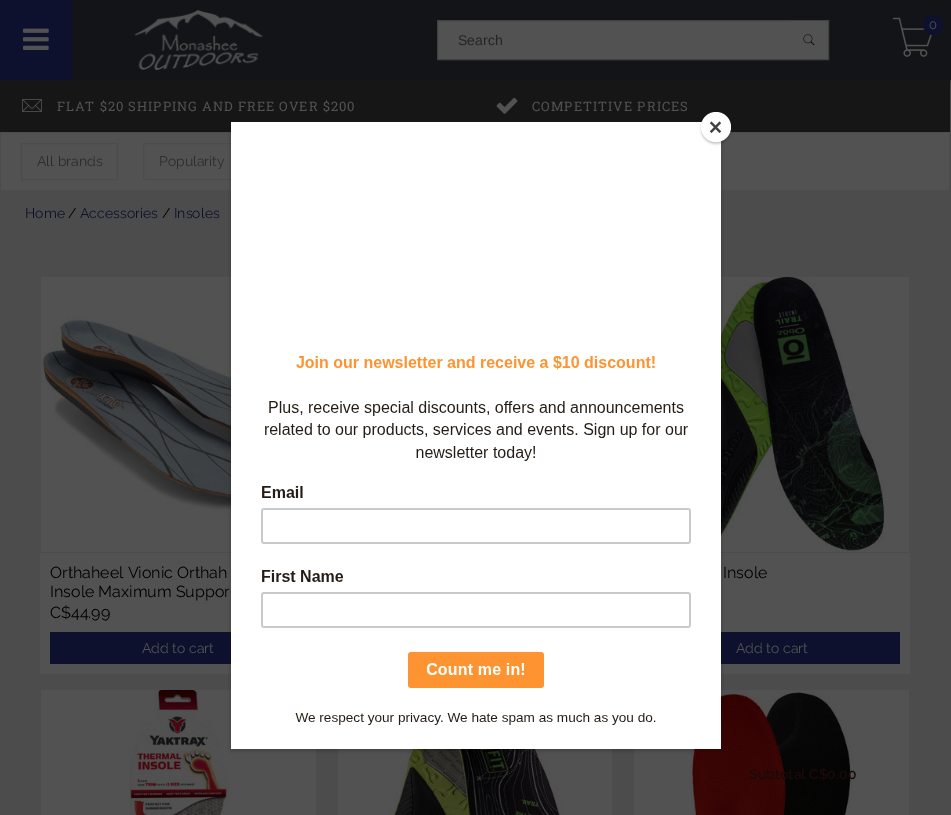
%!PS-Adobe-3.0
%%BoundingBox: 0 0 951 815
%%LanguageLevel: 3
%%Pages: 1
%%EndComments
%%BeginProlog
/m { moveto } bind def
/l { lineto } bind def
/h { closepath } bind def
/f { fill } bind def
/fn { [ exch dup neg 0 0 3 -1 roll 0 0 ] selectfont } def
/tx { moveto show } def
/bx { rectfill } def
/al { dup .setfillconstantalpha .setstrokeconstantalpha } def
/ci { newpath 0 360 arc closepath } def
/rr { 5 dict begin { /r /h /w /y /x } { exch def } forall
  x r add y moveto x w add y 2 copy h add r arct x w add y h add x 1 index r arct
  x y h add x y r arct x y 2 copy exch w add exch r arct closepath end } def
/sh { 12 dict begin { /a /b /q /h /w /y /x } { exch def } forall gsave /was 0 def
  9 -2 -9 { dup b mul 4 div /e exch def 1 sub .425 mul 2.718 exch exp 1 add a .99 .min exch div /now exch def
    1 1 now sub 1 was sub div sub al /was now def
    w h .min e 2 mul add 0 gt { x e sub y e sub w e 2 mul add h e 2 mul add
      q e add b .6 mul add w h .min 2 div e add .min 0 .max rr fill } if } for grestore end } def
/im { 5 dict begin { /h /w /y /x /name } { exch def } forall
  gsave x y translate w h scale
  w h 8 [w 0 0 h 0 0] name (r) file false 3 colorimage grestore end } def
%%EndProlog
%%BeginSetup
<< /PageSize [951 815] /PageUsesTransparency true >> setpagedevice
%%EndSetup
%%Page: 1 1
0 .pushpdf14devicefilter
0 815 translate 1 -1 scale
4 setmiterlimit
0.298 setgray
0 0 951 815 bx
0.086 setgray
0 80 950 52 bx
0.063 setgray
2 1 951 82 0 0.5 0.25 sh
0.075 0.078 0.09 setrgbcolor
72 0 879 80 bx
0.055 0.067 0.18 setrgbcolor
0 0 72 80 bx
(image0.raw) 23 28 26 22 im
(image1.raw) 134 10 129 60 im
(image2.raw) 892 17 41 40 im
933 25 10 ci f
/Raleway-Regular 13 fn
0.322 setgray
(0) 929 29 tx
438 21 352 38 bx
0.255 setgray
437.5 20.5 391 39 rectstroke
/LiberationSans-Regular 14 fn
0.145 setgray
(Search) 458 45 tx
0.322 setgray
790 21 38 38 bx
(image3.raw) 803 34 12 12 im
(image4.raw) 22 99 20 13 im
/RobotoSlab-Regular 13 fn
57 111 m 1 0 (FLAT $20 SHIPPING AND FREE OVER $200) ashow
(image5.raw) 496 97 22 17 im
532 111 m 1 0 (COMPETITIVE PRICES) ashow
1 133 948 57 bx
0.298 setgray
21.5 143.5 96 36 rectstroke
/Raleway-Regular 14 fn
0.173 setgray
(All brands) 37 166 tx
0.298 setgray
143.5 143.5 97 36 rectstroke
0.173 setgray
(Popularity) 159 166 tx
0.055 0.067 0.18 setrgbcolor
(Home) 25 218 tx
0 setgray
(/) 68 218 tx
0.055 0.067 0.18 setrgbcolor
(Accessories) 80 218 tx
0 setgray
(/) 162 218 tx
0.055 0.067 0.18 setrgbcolor
(Insoles) 174 218 tx
(image6.raw) 41 277 190 275 im
0.322 setgray
40 553 191 121 bx
/Raleway-Regular 16 fn
0 setgray
(Orthaheel Vionic Orthah) 50 578 tx
(Insole Maximum Suppor) 50 597 tx
(C$44.99) 50 618 tx
0.055 0.067 0.18 setrgbcolor
50 632 181 32 bx
/Raleway-Regular 14 fn
0.322 setgray
(Add to cart) 142 653 tx
(image7.raw) 721 277 188 275 im
721 553 189 121 bx
/Raleway-Regular 16 fn
0 setgray
(Insole) 723 578 tx
0.055 0.067 0.18 setrgbcolor
721 632 179 32 bx
/Raleway-Regular 14 fn
0.322 setgray
(Add to cart) 736 653 tx
(image8.raw) 41 690 275 125 im
(image9.raw) 338 749 274 66 im
(image10.raw) 634 690 275 125 im
/Raleway-SemiBold 14 fn
0.106 0.035 0.035 setrgbcolor
(Subtotal C$0.00) 749 779 tx
0 setgray
231 124 490 627 0 2 0.2 sh
(image11.raw) 231 122 490 627 im
701 114 30 30 15 1 0.2 sh
1 setgray
716 127 15 ci f
0.255 setgray
719.5 121.5 m 721 123 l 711.5 133 l 710 131.5 l h f
710 123 m 711.5 121.5 l 721 131.5 l 719.5 133 l h f
.poppdf14devicefilter showpage
%%EOF
